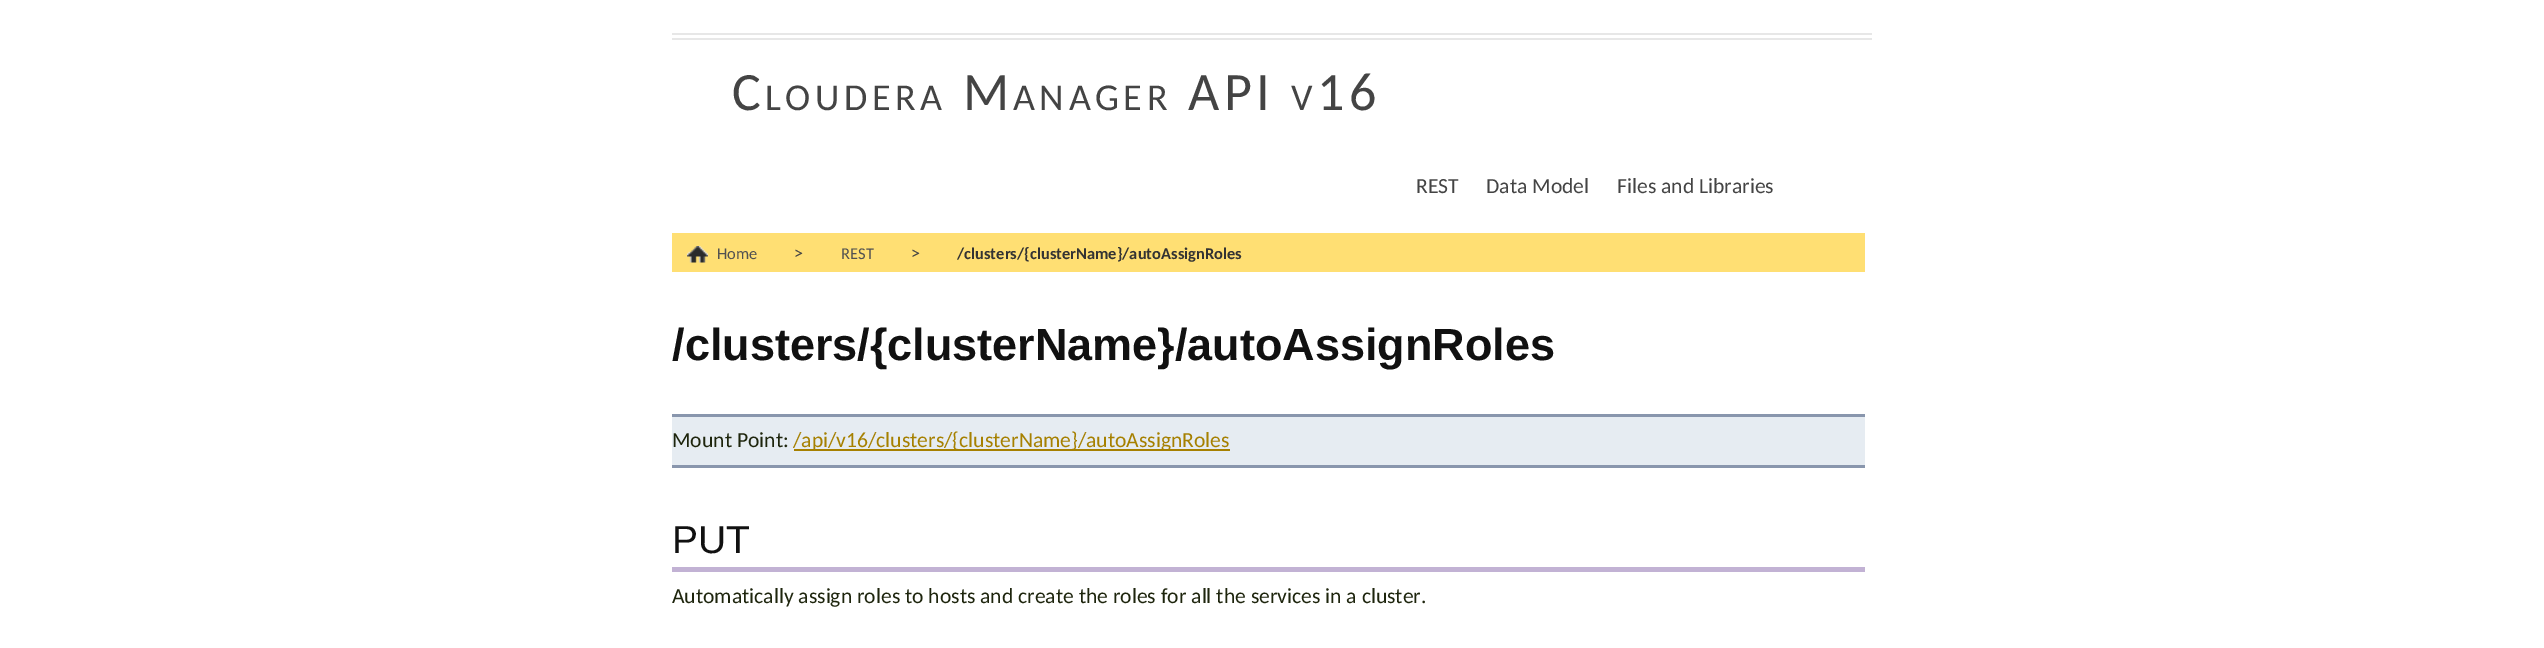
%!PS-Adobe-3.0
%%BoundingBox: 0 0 2544 648
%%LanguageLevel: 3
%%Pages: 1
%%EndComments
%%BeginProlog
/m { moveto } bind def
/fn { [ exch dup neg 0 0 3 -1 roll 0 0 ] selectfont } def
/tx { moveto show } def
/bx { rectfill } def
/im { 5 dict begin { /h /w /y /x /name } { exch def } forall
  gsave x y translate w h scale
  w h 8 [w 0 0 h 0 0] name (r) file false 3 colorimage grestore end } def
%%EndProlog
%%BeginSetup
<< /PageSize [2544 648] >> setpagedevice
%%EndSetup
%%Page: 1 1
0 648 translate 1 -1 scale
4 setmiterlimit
1 setgray
0 0 2544 648 bx
0.906 setgray
672 33 1200 2 bx
672 38 1200 2 bx
/Carlito-Regular 54 fn
0.267 setgray
732 110 m 4.5 0 (C) ashow
/Carlito-Regular 38 fn
765 110 m 4.5 0 (LOUDERA) ashow
/Carlito-Regular 54 fn
963 110 m 4.5 0 (M) ashow
/Carlito-Regular 38 fn
1013 110 m 4.5 0 (ANAGER) ashow
/Carlito-Regular 54 fn
1188 110 m 4.5 0 (API) ashow
/Carlito-Regular 38 fn
1291 110 m 4.5 0 (V) ashow
/Carlito-Regular 54 fn
1317 110 m 4.5 0 (16) ashow
/Carlito-Regular 21.6 fn
(REST) 1416 193 tx
(Data Model) 1486 193 tx
(Files and Libraries) 1617 193 tx
1 0.875 0.451 setrgbcolor
672 233 1193 39 bx
(image0.raw) 687 246 21 17 im
/Carlito-Regular 16.5 fn
0.318 setgray
(Home) 717 259 tx
/Carlito-Regular 18 fn
0.267 setgray
(>) 794 259 tx
/Carlito-Regular 16.5 fn
0.318 setgray
(REST) 841 259 tx
/Carlito-Regular 18 fn
0.267 setgray
(>) 911 259 tx
/Carlito-Bold 16.5 fn
0.2 setgray
(/clusters/{clusterName}/autoAssignRoles) 957 259 tx
/LiberationSans-Bold 45 fn
0.067 setgray
(/clusters/{clusterName}/autoAssignRoles) 672 360 tx
0.902 0.925 0.949 setrgbcolor
672 417 1193 48 bx
0.537 0.588 0.678 setrgbcolor
672 414 1193 3 bx
672 465 1193 3 bx
/Carlito-Regular 21.6 fn
0.118 0.145 0.051 setrgbcolor
(Mount Point:) 672 447 tx
0.651 0.502 0 setrgbcolor
794 449 436 2 bx
(/api/v16/clusters/{clusterName}/autoAssignRoles) 793 447 tx
0.761 0.698 0.831 setrgbcolor
672 567 1193 5 bx
/LiberationSans-Regular 39 fn
0.067 setgray
(PUT) 672 553 tx
/Carlito-Regular 21.6 fn
0.118 0.145 0.051 setrgbcolor
(Automatically assign roles to hosts and create the roles for all the services in a cluster.) 672 603 tx
showpage
%%EOF
